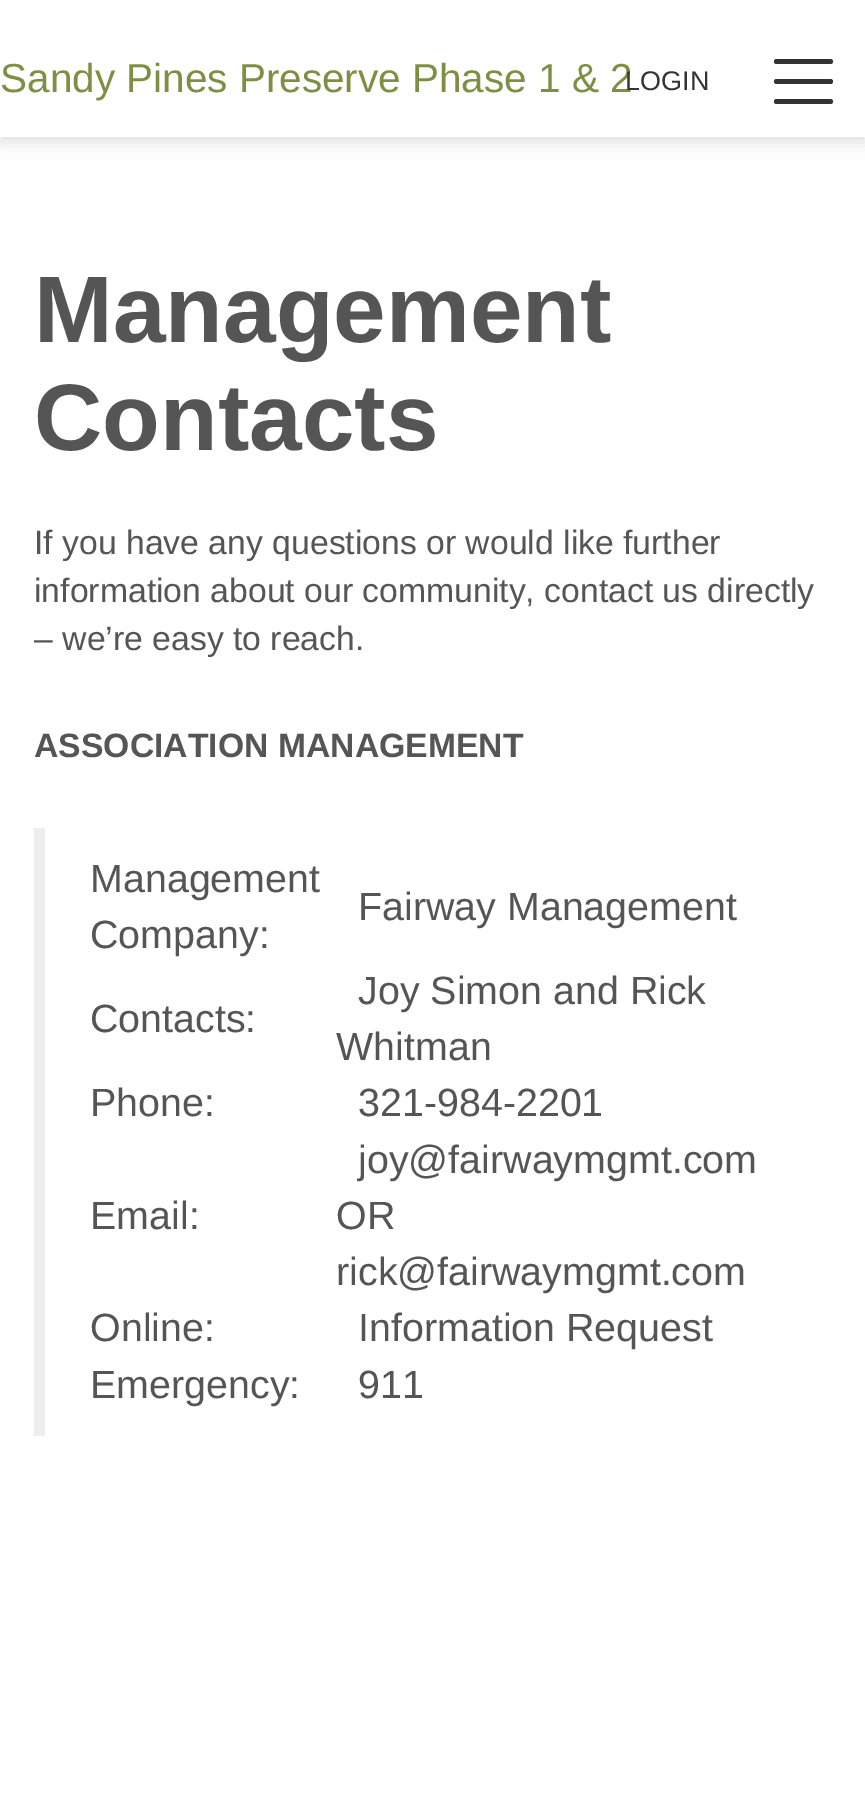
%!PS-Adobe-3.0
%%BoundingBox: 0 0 865 1807
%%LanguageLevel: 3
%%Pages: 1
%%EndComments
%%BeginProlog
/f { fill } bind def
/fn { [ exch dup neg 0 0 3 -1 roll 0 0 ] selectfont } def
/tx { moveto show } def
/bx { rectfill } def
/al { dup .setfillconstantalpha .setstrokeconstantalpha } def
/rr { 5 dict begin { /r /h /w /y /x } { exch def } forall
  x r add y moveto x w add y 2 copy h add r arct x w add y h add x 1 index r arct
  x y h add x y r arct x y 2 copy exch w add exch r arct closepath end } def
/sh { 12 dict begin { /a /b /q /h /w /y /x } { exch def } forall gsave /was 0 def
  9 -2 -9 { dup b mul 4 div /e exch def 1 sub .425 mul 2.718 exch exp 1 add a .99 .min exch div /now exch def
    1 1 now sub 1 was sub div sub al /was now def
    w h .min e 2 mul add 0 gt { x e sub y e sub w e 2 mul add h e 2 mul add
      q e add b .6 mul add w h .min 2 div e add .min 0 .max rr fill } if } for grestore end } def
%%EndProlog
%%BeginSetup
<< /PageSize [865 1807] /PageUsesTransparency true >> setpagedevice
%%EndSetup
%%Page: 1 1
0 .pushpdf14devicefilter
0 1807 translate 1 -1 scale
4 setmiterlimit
1 setgray
0 0 865 1807 bx
0 setgray
0 5 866 137 0 8 0.12 sh
1 setgray
0 0 865 137 bx
/LiberationSans-Regular 40.5 fn
0.49 0.561 0.263 setrgbcolor
(Sandy Pines Preserve Phase 1 & 2) 0 92 tx
0.2 setgray
774 59 59 5 2.5 rr f
774 79 59 5 2.5 rr f
774 99 59 5 2.5 rr f
/LiberationSans-Regular 27 fn
(LOGIN) 625 90 tx
/LiberationSans-Bold 94.5 fn
0.333 setgray
(Management) 34 342 tx
(Contacts) 34 450 tx
/LiberationSans-Regular 33.75 fn
(If you have any questions or would like further) 34 554 tx
(information about our community, contact us directly) 34 602 tx
(– we’re easy to reach.) 34 650 tx
/LiberationSans-Bold 33.75 fn
(ASSOCIATION MANAGEMENT) 34 757 tx
0.933 setgray
34 828 11 608 bx
/LiberationSans-Regular 39.4 fn
0.333 setgray
(Management) 90 892 tx
(Company:) 90 948 tx
(Fairway Management) 358 920 tx
(Contacts:) 90 1032 tx
(Joy Simon and Rick) 358 1004 tx
(Whitman) 336 1060 tx
(Phone:) 90 1116 tx
(321-984-2201) 358 1116 tx
(Email:) 90 1229 tx
(joy@fairwaymgmt.com) 358 1173 tx
(OR) 336 1229 tx
(rick@fairwaymgmt.com) 336 1285 tx
(Online:) 90 1341 tx
(Information Request) 358 1341 tx
(Emergency:) 90 1398 tx
(911) 358 1398 tx
.poppdf14devicefilter showpage
%%EOF
